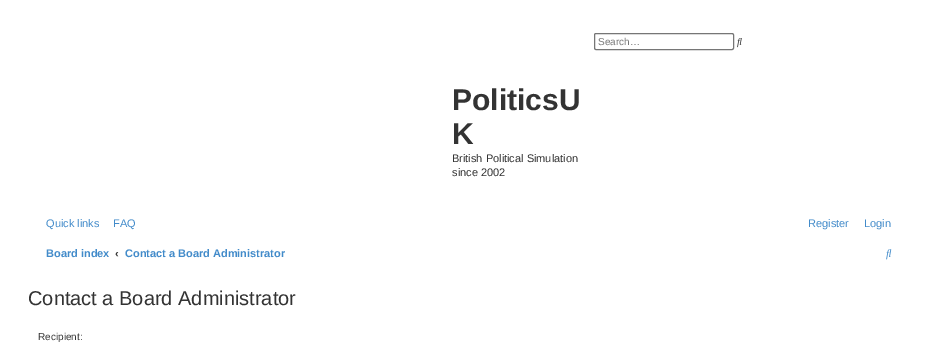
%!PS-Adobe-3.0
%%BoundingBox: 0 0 929 342
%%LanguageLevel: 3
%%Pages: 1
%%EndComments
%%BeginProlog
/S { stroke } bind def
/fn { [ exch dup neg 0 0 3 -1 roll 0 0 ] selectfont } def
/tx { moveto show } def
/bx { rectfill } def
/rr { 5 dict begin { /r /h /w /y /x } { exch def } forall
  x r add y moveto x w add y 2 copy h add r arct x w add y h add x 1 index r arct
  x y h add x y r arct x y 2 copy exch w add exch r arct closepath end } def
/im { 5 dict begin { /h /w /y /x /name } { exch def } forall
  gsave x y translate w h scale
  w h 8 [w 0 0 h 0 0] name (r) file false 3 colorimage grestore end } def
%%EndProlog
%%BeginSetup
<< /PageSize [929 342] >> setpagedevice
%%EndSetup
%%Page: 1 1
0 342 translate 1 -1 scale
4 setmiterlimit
1 setgray
0 0 929 342 bx
0.463 setgray
594.5 33.5 139 16 1.5 rr S
/LiberationSans-Regular 10 fn
0.459 setgray
(Search…) 598 45 tx
(image0.raw) 737 38 5 10 im
/LiberationSans-Bold 30 fn
0.2 setgray
(PoliticsU) 452 110 tx
(K) 452 144 tx
/LiberationSans-Regular 11 fn
(British Political Simulation) 452 162 tx
(since 2002) 452 176 tx
0.259 0.545 0.792 setrgbcolor
(Quick links) 46 227 tx
(FAQ) 113 227 tx
(Register) 808 227 tx
(Login) 864 227 tx
/LiberationSans-Bold 11 fn
(Board index) 46 257 tx
0.2 setgray
(‹) 115 257 tx
0.259 0.545 0.792 setrgbcolor
(Contact a Board Administrator) 125 257 tx
(image1.raw) 886 249 6 11 im
/LiberationSans-Regular 20 fn
0.2 setgray
(Contact a Board Administrator) 28 305 tx
/LiberationSans-Regular 10 fn
(Recipient:) 38 340 tx
showpage
%%EOF
